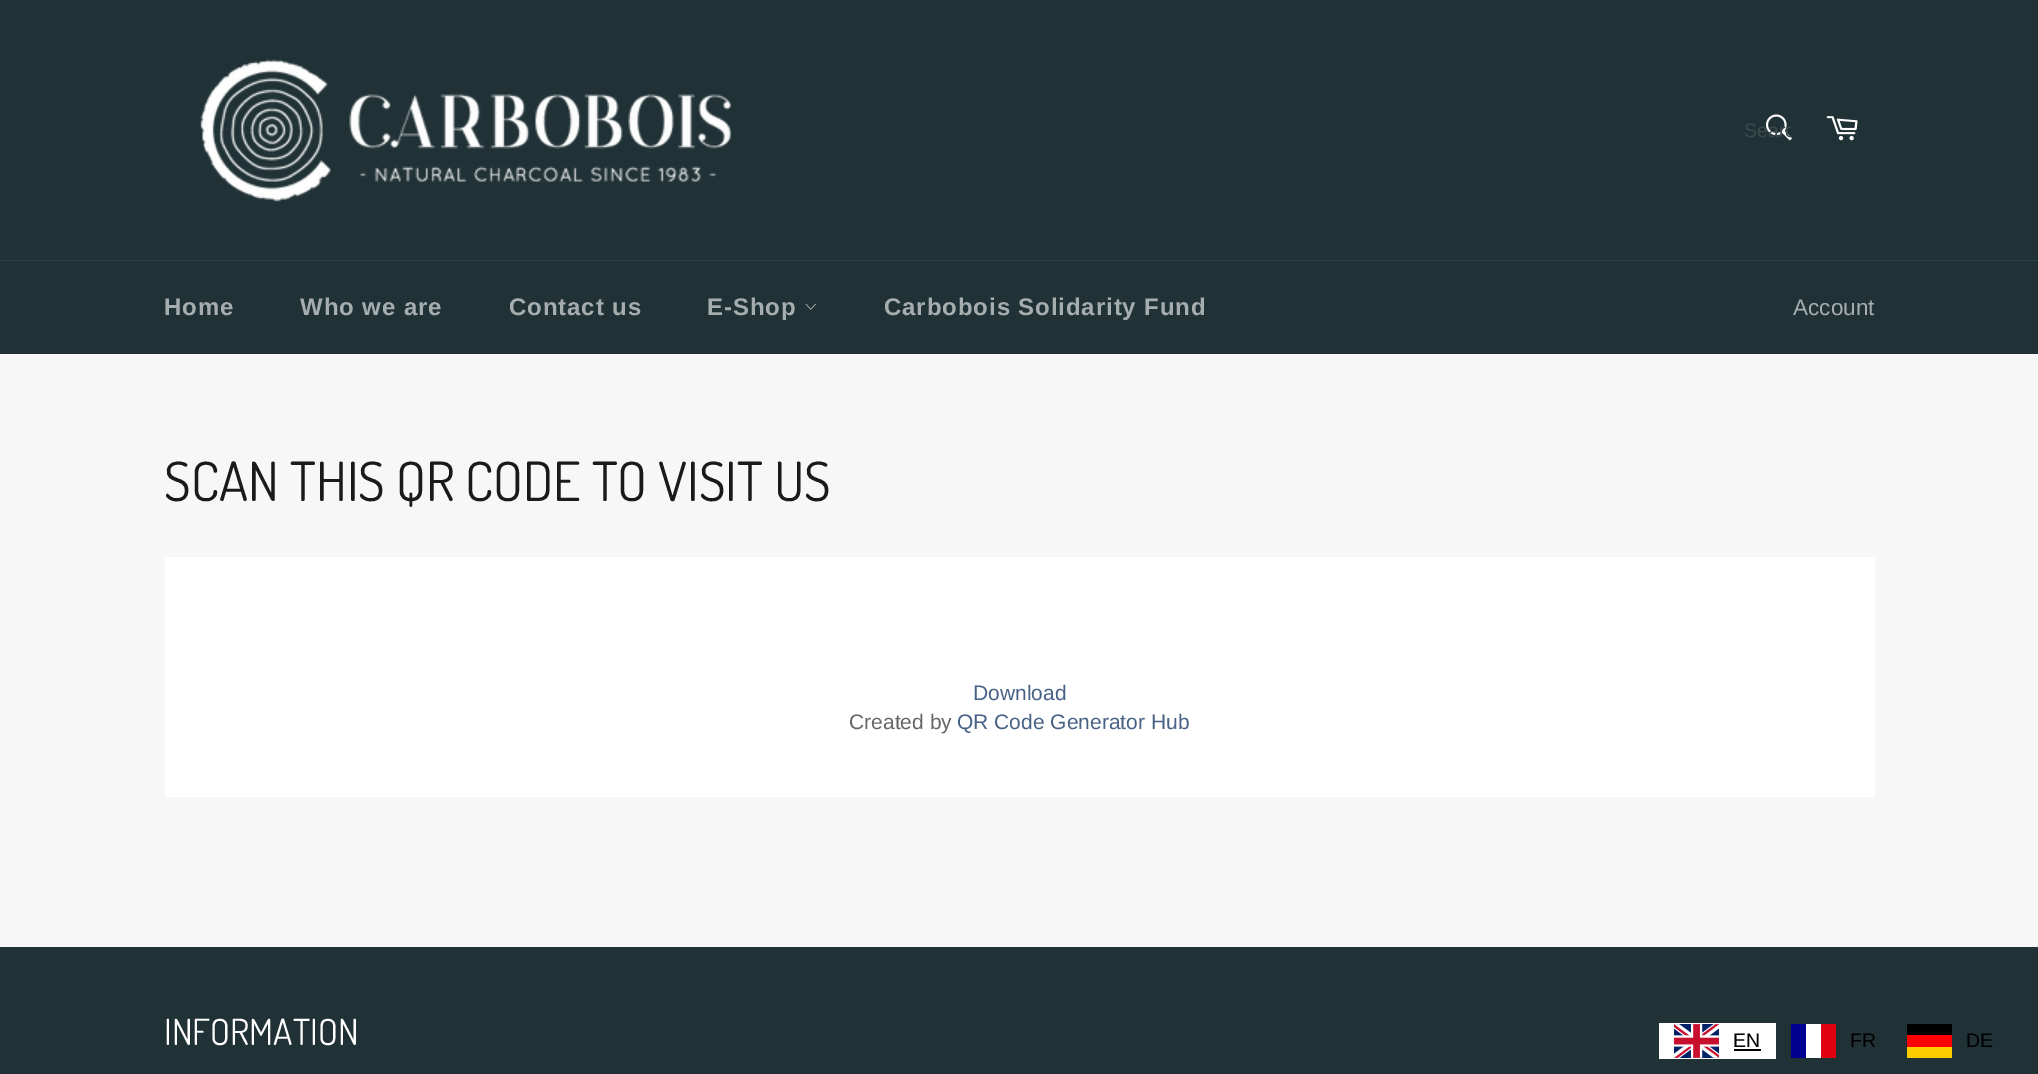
%!PS-Adobe-3.0
%%BoundingBox: 0 0 2038 1074
%%LanguageLevel: 3
%%Pages: 1
%%EndComments
%%BeginProlog
/m { moveto } bind def
/q { gsave } bind def
/Q { grestore } bind def
/fn { [ exch dup neg 0 0 3 -1 roll 0 0 ] selectfont } def
/tx { moveto show } def
/bx { rectfill } def
/im { 5 dict begin { /h /w /y /x /name } { exch def } forall
  gsave x y translate w h scale
  w h 8 [w 0 0 h 0 0] name (r) file false 3 colorimage grestore end } def
%%EndProlog
%%BeginSetup
<< /PageSize [2038 1074] >> setpagedevice
%%EndSetup
%%Page: 1 1
0 1074 translate 1 -1 scale
4 setmiterlimit
0.969 setgray
0 0 2038 1074 bx
0.129 0.196 0.212 setrgbcolor
0 0 2038 260 bx
(image0.raw) 199 59 533 143 im
(image1.raw) 1765 114 27 27 im
q
1743 119 48 22 rectclip
/LiberationSans-Regular 19.5 fn
0.231 0.29 0.302 setrgbcolor
(Searc) 1744 137 tx
Q
(image2.raw) 1826 116 32 25 im
0.169 0.255 0.275 setrgbcolor
0 260 2038 1 bx
0.129 0.196 0.212 setrgbcolor
0 261 2038 93 bx
/LiberationSans-Bold 24 fn
0.651 0.678 0.686 setrgbcolor
164 315 m 0.9 0 (Home) ashow
300 315 m 0.9 0 (Who we are) ashow
509 315 m 0.9 0 (Contact us) ashow
707 315 m 0.9 0 (E-Shop) ashow
(image3.raw) 805 303 11 7 im
884 315 m 0.9 0 (Carbobois Solidarity Fund) ashow
/LiberationSans-Regular 22.5 fn
(Account) 1793 315 tx
/Dosis-Regular 54 fn
0.102 setgray
(SCAN THIS QR CODE TO VISIT US) 164 501 tx
1 setgray
165 557 1710 240 bx
/LiberationSans-Regular 21 fn
0.282 0.384 0.525 setrgbcolor
(Download) 973 700 tx
0.4 setgray
(Created by) 849 729 tx
0.282 0.384 0.525 setrgbcolor
(QR Code Generator Hub) 957 729 tx
0.129 0.196 0.212 setrgbcolor
0 947 2038 127 bx
/Dosis-Regular 36 fn
1 setgray
(INFORMATION) 164 1045 tx
1659 1023 117 36 bx
(image4.raw) 1674 1024 45 34 im
/LiberationSans-Regular 19.5 fn
0 setgray
(EN) 1733 1047 tx
1734 1049 27 2 bx
1 setgray
1806 1024 15 34 bx
0 0 0.569 setrgbcolor
1791 1024 15 34 bx
0.882 0 0.059 setrgbcolor
1821 1024 15 34 bx
0 setgray
(FR) 1850 1047 tx
1 0.8 0 setrgbcolor
1907 1047 45 11 bx
0 0 0.004 setrgbcolor
1907 1024 45 11 bx
1 0 0 setrgbcolor
1907 1035 45 12 bx
0 setgray
(DE) 1966 1047 tx
showpage
%%EOF
